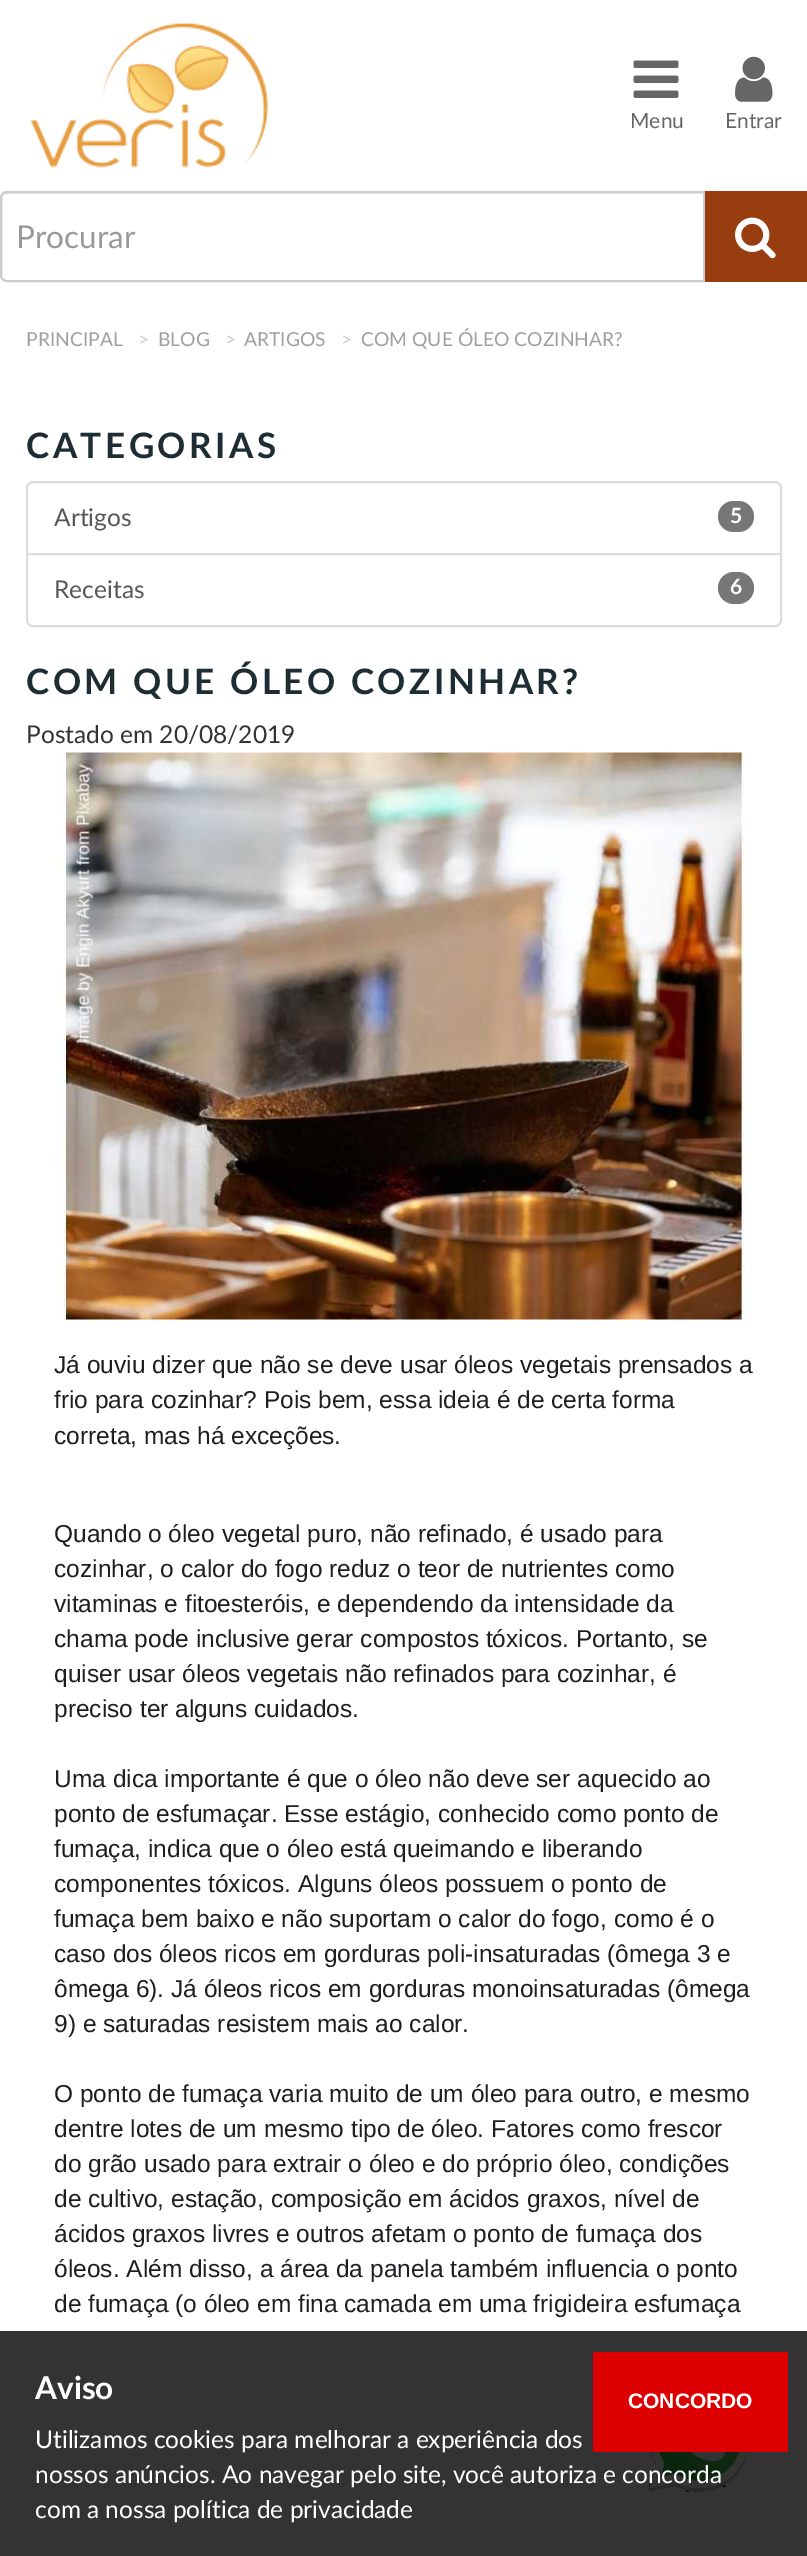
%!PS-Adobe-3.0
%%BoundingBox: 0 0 807 2556
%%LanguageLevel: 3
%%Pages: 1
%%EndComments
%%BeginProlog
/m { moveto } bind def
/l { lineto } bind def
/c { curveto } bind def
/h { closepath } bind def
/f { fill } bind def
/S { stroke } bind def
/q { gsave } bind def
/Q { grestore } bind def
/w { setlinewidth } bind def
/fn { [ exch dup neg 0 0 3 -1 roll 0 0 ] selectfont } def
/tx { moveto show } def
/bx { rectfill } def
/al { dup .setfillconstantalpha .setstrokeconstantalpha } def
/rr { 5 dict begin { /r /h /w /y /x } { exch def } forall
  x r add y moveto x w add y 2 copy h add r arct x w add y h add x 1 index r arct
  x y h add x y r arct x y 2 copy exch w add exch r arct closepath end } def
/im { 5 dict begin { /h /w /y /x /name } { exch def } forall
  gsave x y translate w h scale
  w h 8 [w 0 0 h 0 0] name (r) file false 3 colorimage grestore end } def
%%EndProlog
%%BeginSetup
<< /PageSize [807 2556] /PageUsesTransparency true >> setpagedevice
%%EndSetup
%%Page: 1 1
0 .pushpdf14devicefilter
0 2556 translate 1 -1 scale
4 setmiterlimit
1 setgray
0 0 807 2556 bx
(image0.raw) 30 22 239 146 im
(image1.raw) 633 60 46 38 im
/Lato-Regular 21 fn
0.4 setgray
(Menu) 630 128 tx
(image2.raw) 735 56 38 46 im
(Entrar) 725 128 tx
0.925 setgray
7 194 m 704 194 l 704 193 l 7 193 l 3 193 2 197 2 200 c 2 197 4 194 7 194 c h f
0.8 setgray
2 w
7 192 m 704 192 l 704 281 l 7 281 l 3.5 281 1 278.5 1 275 c 1 198 l 1 194.5 3.5 192 7 192 c h S
/Lato-Regular 31.5 fn
0.6 setgray
(Procurar) 16 248 tx
0.596 0.239 0.063 setrgbcolor
705 191 102 91 bx
(image3.raw) 735 217 41 42 im
/Lato-Regular 19.25 fn
0.627 setgray
(PRINCIPAL) 26 346 tx
0.8 setgray
(>) 138 346 tx
0.627 setgray
(BLOG) 158 346 tx
0.8 setgray
(>) 225 346 tx
0.627 setgray
(ARTIGOS) 244 346 tx
0.8 setgray
(>) 341 346 tx
0.627 setgray
(COM QUE ÓLEO COZINHAR?) 361 346 tx
/Lato-Bold 35 fn
0.118 0.176 0.204 setrgbcolor
26 458 m 3.5 0 (CATEGORIAS) ashow
0.867 setgray
33 482 m 775 482 l 778.5 482 781 484.5 781 488 c 781 554 l 27 554 l 27 488 l 27 484.5 29.5 482 33 482 c h S
/Lato-Regular 24.5 fn
0.341 0.341 0.353 setrgbcolor
(Artigos) 54 526 tx
0.467 setgray
718 501 36 31 15.5 rr f
/Lato-Bold 21 fn
1 setgray
(5) 730 523 tx
27 554 m 781 554 l 781 620 l 781 623.5 778.5 626 775 626 c 33 626 l 29.5 626 27 623.5 27 620 c h q f Q
0.867 setgray
S
/Lato-Regular 24.5 fn
0.341 0.341 0.353 setrgbcolor
(Receitas) 54 598 tx
0.467 setgray
718 572 36 32 16 rr f
/Lato-Bold 21 fn
1 setgray
(6) 730 594 tx
/Lato-Bold 35 fn
0.118 0.176 0.204 setrgbcolor
26 694 m 3.5 0 (COM QUE ÓLEO COZINHAR?) ashow
/Lato-Regular 24.5 fn
0.2 setgray
(Postado em 20/08/2019) 26 743 tx
(image4.raw) 56 752 696 568 im
/LiberationSans-Regular 24.5 fn
0.11 0.118 0.129 setrgbcolor
(Já ouviu dizer que não se deve usar óleos vegetais prensados a) 54 1373 tx
(frio para cozinhar? Pois bem, essa ideia é de certa forma) 54 1408 tx
(correta, mas há exceções.) 54 1444 tx
(Quando o óleo vegetal puro, não refinado, é usado para) 54 1542 tx
(cozinhar, o calor do fogo reduz o teor de nutrientes como) 54 1577 tx
(vitaminas e fitoesteróis, e dependendo da intensidade da) 54 1612 tx
(chama pode inclusive gerar compostos tóxicos. Portanto, se) 54 1647 tx
(quiser usar óleos vegetais não refinados para cozinhar, é) 54 1682 tx
(preciso ter alguns cuidados.) 54 1717 tx
(Uma dica importante é que o óleo não deve ser aquecido ao) 54 1787 tx
(ponto de esfumaçar. Esse estágio, conhecido como ponto de) 54 1822 tx
(fumaça, indica que o óleo está queimando e liberando) 54 1857 tx
(componentes tóxicos. Alguns óleos possuem o ponto de) 54 1892 tx
(fumaça bem baixo e não suportam o calor do fogo, como é o) 54 1927 tx
(caso dos óleos ricos em gorduras poli-insaturadas \(ômega 3 e) 54 1962 tx
(ômega 6\). Já óleos ricos em gorduras monoinsaturadas \(ômega) 54 1997 tx
(9\) e saturadas resistem mais ao calor.) 54 2032 tx
(O ponto de fumaça varia muito de um óleo para outro, e mesmo) 54 2102 tx
(dentre lotes de um mesmo tipo de óleo. Fatores como frescor) 54 2137 tx
(do grão usado para extrair o óleo e do próprio óleo, condições) 54 2172 tx
(de cultivo, estação, composição em ácidos graxos, nível de) 54 2207 tx
(ácidos graxos livres e outros afetam o ponto de fumaça dos) 54 2242 tx
(óleos. Além disso, a área da panela também influencia o ponto) 54 2277 tx
(de fumaça \(o óleo em fina camada em uma frigideira esfumaça) 54 2312 tx
(image5.raw) 649 2452 99 40 im
0.8 al
0 setgray
0 2331 807 225 bx
/Lato-Bold 31.5 fn
1 al
1 setgray
(Aviso) 35 2399 tx
/Lato-Regular 24.5 fn
(Utilizamos cookies para melhorar a experiência dos) 35 2448 tx
(nossos anúncios. Ao navegar pelo site, você autoriza e concorda) 35 2483 tx
(com a nossa política de privacidade) 35 2518 tx
0.863 0 0 setrgbcolor
593 2352 195 100 bx
/LiberationSans-Bold 21 fn
1 setgray
(CONCORDO) 628 2408 tx
.poppdf14devicefilter showpage
%%EOF
